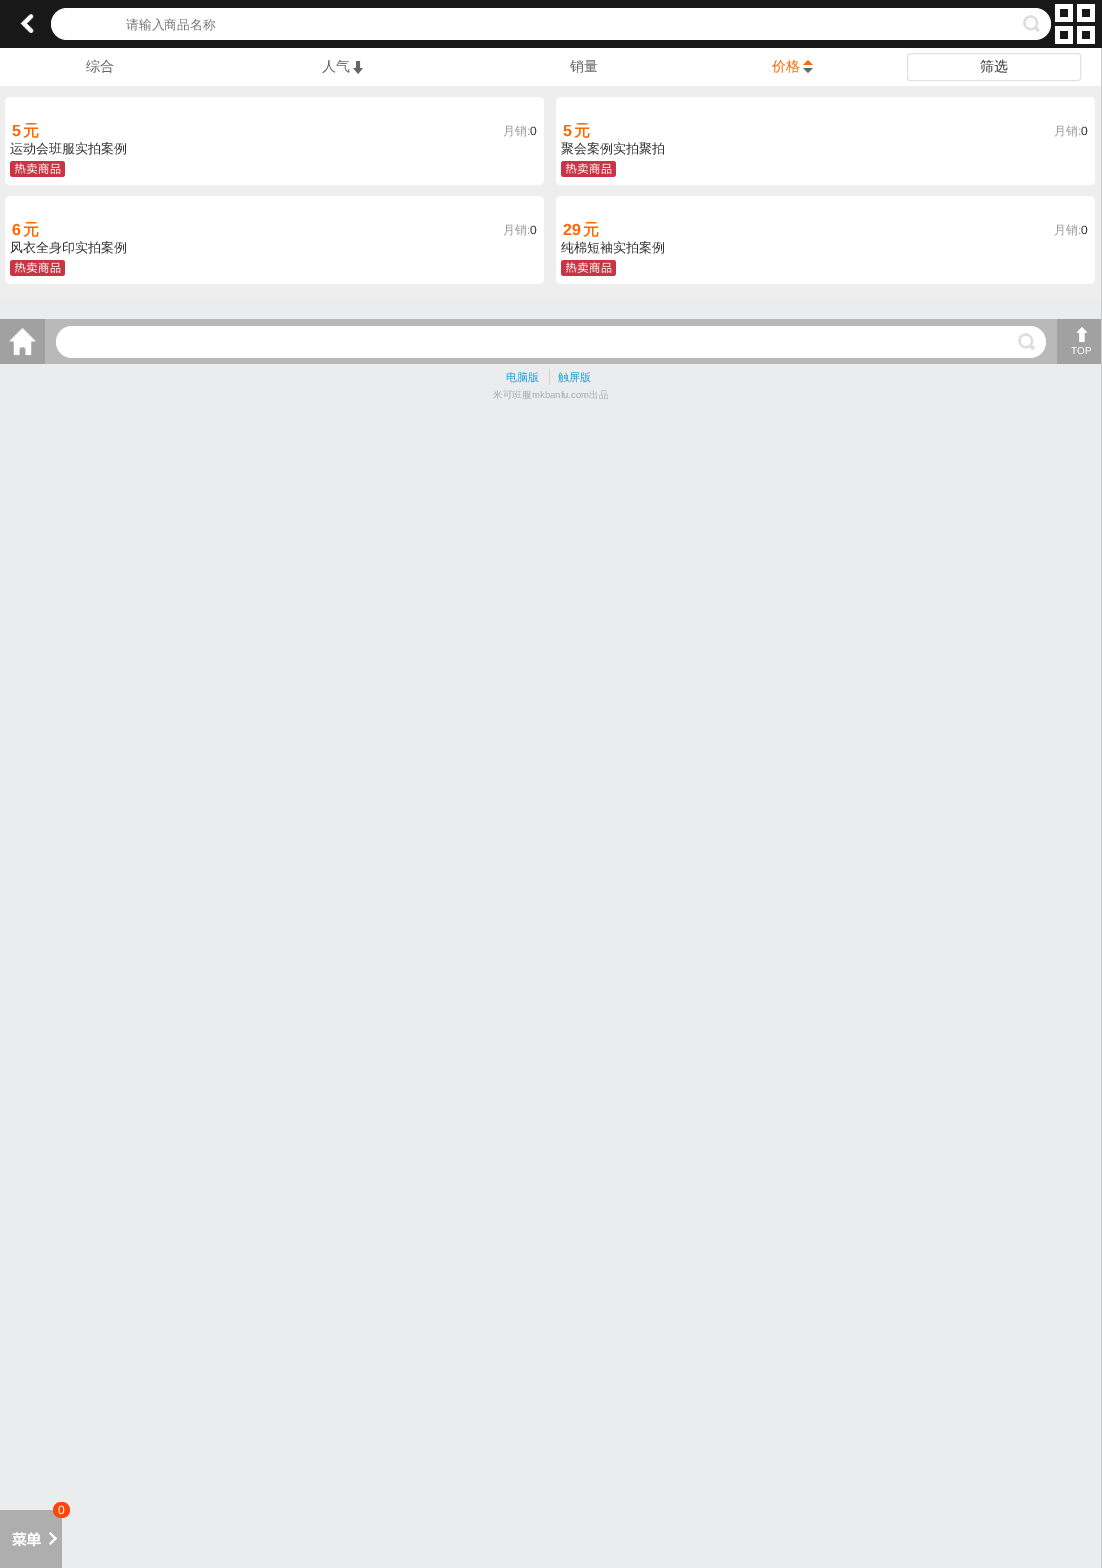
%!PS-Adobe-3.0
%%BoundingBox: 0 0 1102 1568
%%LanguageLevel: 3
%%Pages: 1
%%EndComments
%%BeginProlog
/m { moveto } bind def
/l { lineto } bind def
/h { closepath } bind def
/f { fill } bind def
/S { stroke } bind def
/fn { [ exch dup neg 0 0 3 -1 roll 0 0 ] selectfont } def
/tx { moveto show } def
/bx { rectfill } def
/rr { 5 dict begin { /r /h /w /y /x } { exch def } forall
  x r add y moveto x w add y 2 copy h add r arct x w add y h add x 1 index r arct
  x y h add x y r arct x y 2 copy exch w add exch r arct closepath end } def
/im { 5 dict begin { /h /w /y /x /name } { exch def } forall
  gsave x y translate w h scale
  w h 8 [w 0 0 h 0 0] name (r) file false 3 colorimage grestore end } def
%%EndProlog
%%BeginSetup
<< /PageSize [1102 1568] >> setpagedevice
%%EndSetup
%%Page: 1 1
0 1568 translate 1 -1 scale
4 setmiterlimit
0.922 0.925 0.929 setrgbcolor
0 0 1102 1568 bx
0.094 setgray
0 0 1102 48 bx
(image0.raw) 20 14 14 19 im
1 setgray
51 8 1000 32 16 rr f
/WenQuanYiZenHei-Medium 12.75 fn
0.459 setgray
(请输入商品名称) 126 29 tx
(image1.raw) 1023 15 17 18 im
(image2.raw) 1055 4 40 40 im
1 setgray
0 48 1101 38 bx
/WenQuanYiZenHei-Medium 14 fn
0.4 setgray
(综合) 86 71 tx
(人气) 322 71 tx
(image3.raw) 353 61 10 13 im
(销量) 570 71 tx
1 0.404 0 setrgbcolor
(价格) 772 71 tx
813 65 m 803 65 l 808 60 l h f
0.4 setgray
803 68 m 813 68 l 808 73 l h f
0.886 setgray
907.5 53.5 173 27 2.5 rr S
0.2 setgray
(筛选) 980 71 tx
0.933 setgray
0 86 1101 213 bx
1 setgray
5 97 539 88 5 rr f
/LiberationSans-Bold 16 fn
1 0.404 0 setrgbcolor
(5) 12 136 tx
/WenQuanYiZenHei-Bold 16 fn
(元) 23 136 tx
/WenQuanYiZenHei-Medium 12 fn
0.6 setgray
(月销) 503 135 tx
/LiberationSans-Regular 12 fn
(:) 527 135 tx
0.2 setgray
(0) 530 135 tx
/WenQuanYiZenHei-Medium 13 fn
(运动会班服实拍案例) 10 153 tx
(image4.raw) 10 161 55 16 im
1 setgray
556 97 539 88 5 rr f
/LiberationSans-Bold 16 fn
1 0.404 0 setrgbcolor
(5) 563 136 tx
/WenQuanYiZenHei-Bold 16 fn
(元) 574 136 tx
/WenQuanYiZenHei-Medium 12 fn
0.6 setgray
(月销) 1054 135 tx
/LiberationSans-Regular 12 fn
(:) 1078 135 tx
0.2 setgray
(0) 1081 135 tx
/WenQuanYiZenHei-Medium 13 fn
(聚会案例实拍聚拍) 561 153 tx
(image4.raw) 561 161 55 16 im
1 setgray
5 196 539 88 5 rr f
/LiberationSans-Bold 16 fn
1 0.404 0 setrgbcolor
(6) 12 235 tx
/WenQuanYiZenHei-Bold 16 fn
(元) 23 235 tx
/WenQuanYiZenHei-Medium 12 fn
0.6 setgray
(月销) 503 234 tx
/LiberationSans-Regular 12 fn
(:) 527 234 tx
0.2 setgray
(0) 530 234 tx
/WenQuanYiZenHei-Medium 13 fn
(风衣全身印实拍案例) 10 252 tx
(image4.raw) 10 260 55 16 im
1 setgray
556 196 539 88 5 rr f
/LiberationSans-Bold 16 fn
1 0.404 0 setrgbcolor
(29) 563 235 tx
/WenQuanYiZenHei-Bold 16 fn
(元) 583 235 tx
/WenQuanYiZenHei-Medium 12 fn
0.6 setgray
(月销) 1054 234 tx
/LiberationSans-Regular 12 fn
(:) 1078 234 tx
0.2 setgray
(0) 1081 234 tx
/WenQuanYiZenHei-Medium 13 fn
(纯棉短袖实拍案例) 561 252 tx
(image4.raw) 561 260 55 16 im
0.725 setgray
45 319 1012 45 bx
0.631 setgray
0 319 45 45 bx
(image5.raw) 9 328 27 28 im
1 setgray
56 326 990 32 16 rr f
(image6.raw) 1018 333 17 18 im
0.631 setgray
1057 319 44 45 bx
(image7.raw) 1076 327 12 15 im
/LiberationSans-Regular 10 fn
1 setgray
(TOP) 1071 354 tx
0.835 setgray
549 369 1 16 bx
/WenQuanYiZenHei-Medium 11 fn
0.11 0.635 0.882 setrgbcolor
(电脑版) 506 381 tx
(触屏版) 558 381 tx
/WenQuanYiZenHei-Medium 9.5 fn
0.667 setgray
(米可班服) 493 398 tx
/LiberationSans-Regular 9.5 fn
(mkbanfu.com) 532 398 tx
/WenQuanYiZenHei-Medium 9.5 fn
(出品) 589 398 tx
0.682 setgray
0 1510 62 58 bx
0.992 0.275 0.035 setrgbcolor
53 1502 17 16 8 rr f
/LiberationSans-Regular 12 fn
1 setgray
(0) 58 1514 tx
(image8.raw) 12 1532 29 15 im
50.5 1532 m 57 1538.5 l 55.5 1540 l 49 1533.5 l h f
55.5 1537 m 57 1538.5 l 50.5 1545 l 49 1543.5 l h f
0.8 setgray
1101 48 1 1520 bx
showpage
%%EOF
